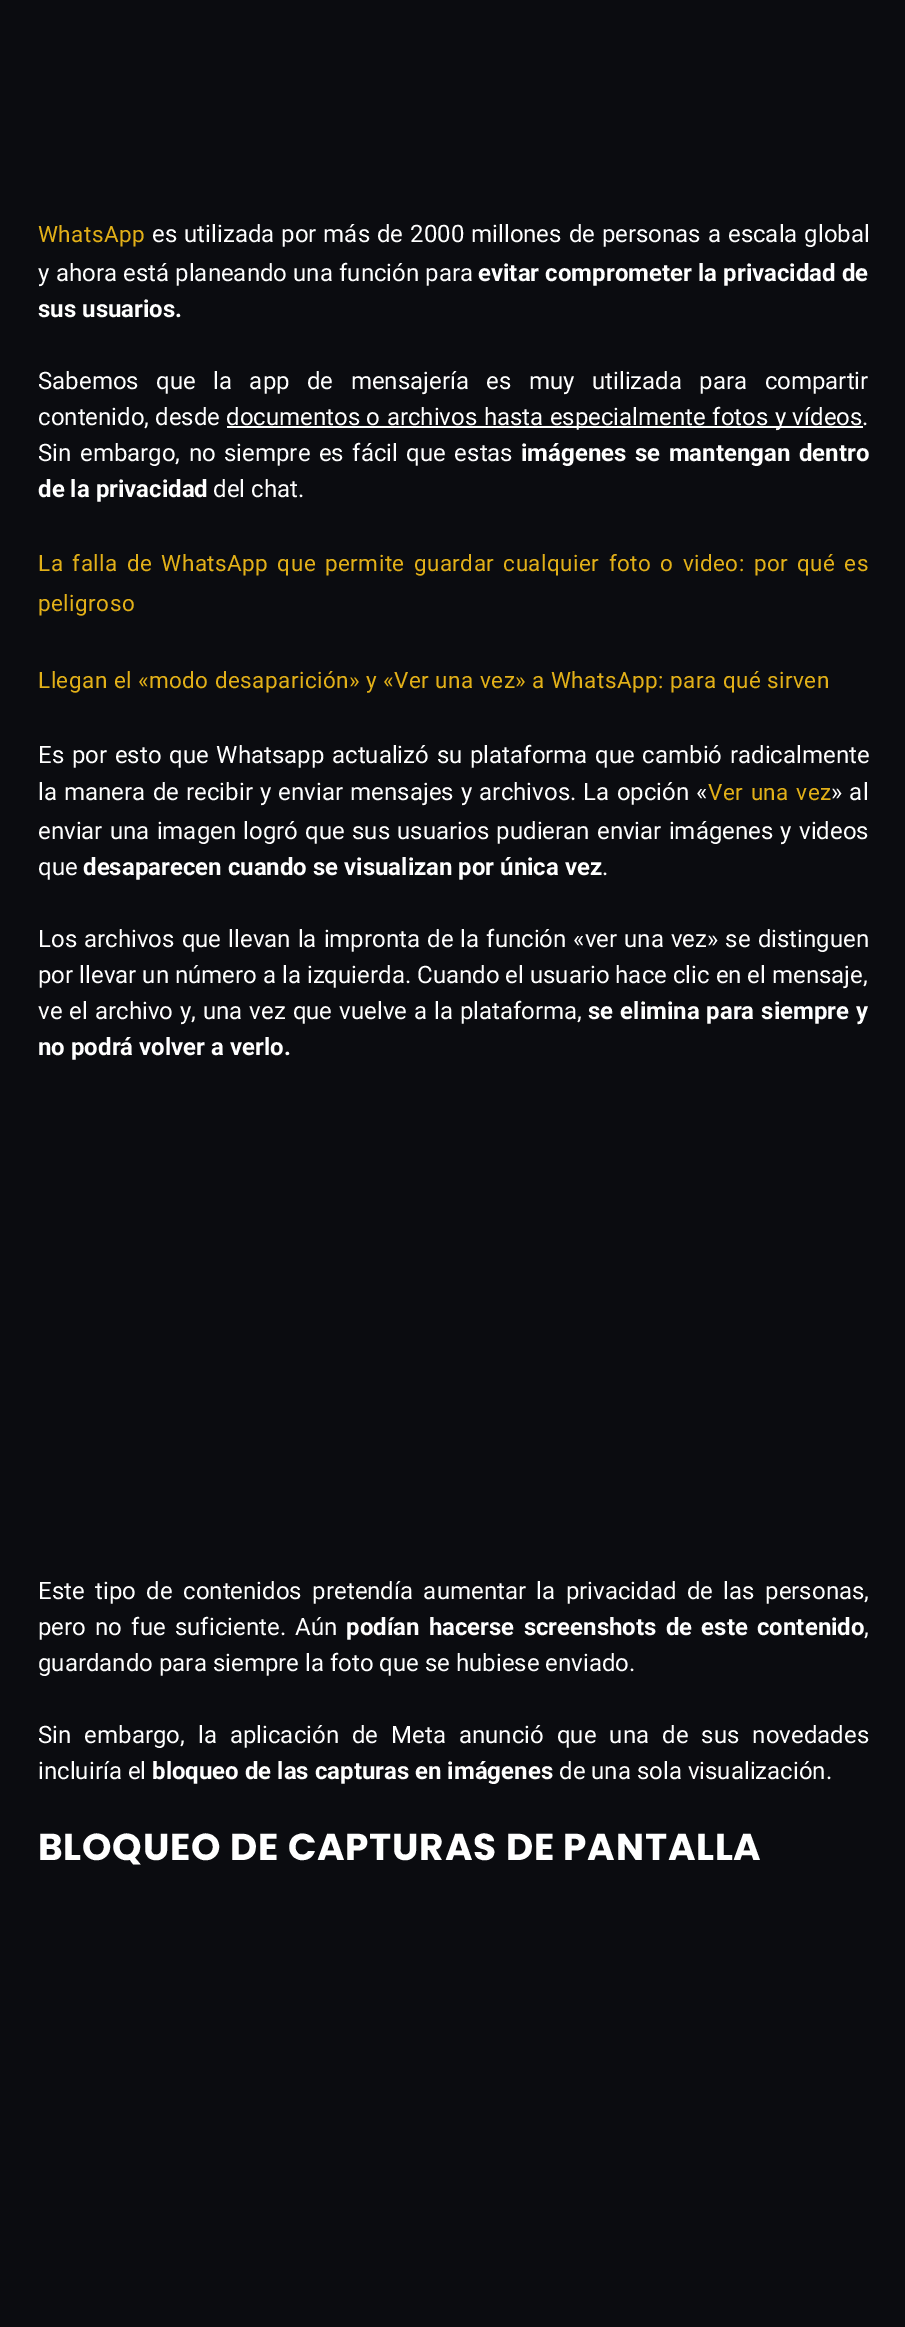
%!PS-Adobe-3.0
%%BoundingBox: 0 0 905 2327
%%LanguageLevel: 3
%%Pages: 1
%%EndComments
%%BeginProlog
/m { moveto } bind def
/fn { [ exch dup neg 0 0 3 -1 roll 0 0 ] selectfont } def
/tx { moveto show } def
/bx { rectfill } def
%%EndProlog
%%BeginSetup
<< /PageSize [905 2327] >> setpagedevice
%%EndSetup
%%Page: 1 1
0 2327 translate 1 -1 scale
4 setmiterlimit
0.043 0.047 0.063 setrgbcolor
0 0 905 2327 bx
/Roboto-Regular 22.5 fn
0.886 0.69 0.094 setrgbcolor
38 242 m 0.45 0 (WhatsApp) ashow
/Roboto-Regular 24 fn
1 setgray
152 242 m 1 0 32 (es utilizada por más de 2000 millones de personas a escala global) widthshow
38 281 m 0.25 0 32 (y ahora está planeando una función para) widthshow
/Roboto-Bold 24 fn
478 281 m 0.25 0 32 (evitar comprometer la privacidad de) widthshow
(sus usuarios.) 38 317 tx
/Roboto-Regular 24 fn
38 389 m 11.5 0 32 (Sabemos que la app de mensajería es muy utilizada para compartir) widthshow
(contenido, desde) 38 425 tx
227 426 636 2 bx
226 425 m 0.5 0 32 (documentos o archivos hasta especialmente fotos y vídeos) widthshow
(.) 862 425 tx
38 461 m 2.5 0 32 (Sin embargo, no siempre es fácil que estas) widthshow
/Roboto-Bold 24 fn
521 461 m 2.5 0 32 (imágenes se mantengan dentro) widthshow
(de la privacidad) 38 497 tx
/Roboto-Regular 24 fn
(del chat.) 213 497 tx
/Roboto-Regular 22.5 fn
0.886 0.69 0.094 setrgbcolor
38 571 m 3 0 32 0.45 0 (La falla de WhatsApp que permite guardar cualquier foto o video: por qué es) awidthshow
38 611 m 0.45 0 (peligroso) ashow
38 688 m 0.45 0 (Llegan el «modo desaparición» y «Ver una vez» a WhatsApp: para qué sirven) ashow
/Roboto-Regular 24 fn
1 setgray
38 763 m 1.75 0 32 (Es por esto que Whatsapp actualizó su plataforma que cambió radicalmente) widthshow
38 800 m 1.25 0 32 (la manera de recibir y enviar mensajes y archivos. La opción «) widthshow
/Roboto-Regular 22.5 fn
0.886 0.69 0.094 setrgbcolor
708 800 m 1.25 0 32 0.45 0 (Ver una vez) awidthshow
/Roboto-Regular 24 fn
1 setgray
831 800 m 1.25 0 32 (» al) widthshow
38 839 m 1.25 0 32 (enviar una imagen logró que sus usuarios pudieran enviar imágenes y videos) widthshow
(que) 38 875 tx
/Roboto-Bold 24 fn
(desaparecen cuando se visualizan por única vez) 83 875 tx
/Roboto-Regular 24 fn
(.) 602 875 tx
38 947 m 1.1 0 32 (Los archivos que llevan la impronta de la función «ver una vez» se distinguen) widthshow
(por llevar un número a la izquierda. Cuando el usuario hace clic en el mensaje,) 38 983 tx
38 1019 m 1 0 32 (ve el archivo y, una vez que vuelve a la plataforma,) widthshow
/Roboto-Bold 24 fn
588 1019 m 1 0 32 (se elimina para siempre y) widthshow
(no podrá volver a verlo.) 38 1055 tx
/Roboto-Regular 24 fn
38 1599 m 4.5 0 32 (Este tipo de contenidos pretendía aumentar la privacidad de las personas,) widthshow
38 1635 m 3.25 0 32 (pero no fue suficiente. Aún) widthshow
/Roboto-Bold 24 fn
346 1635 m 3.25 0 32 (podían hacerse screenshots de este contenido) widthshow
/Roboto-Regular 24 fn
(,) 864 1635 tx
(guardando para siempre la foto que se hubiese enviado.) 38 1671 tx
38 1743 m 7.1 0 32 (Sin embargo, la aplicación de Meta anunció que una de sus novedades) widthshow
(incluiría el) 38 1779 tx
/Roboto-Bold 24 fn
(bloqueo de las capturas en imágenes) 152 1779 tx
/Roboto-Regular 24 fn
(de una sola visualización.) 559 1779 tx
/Poppins-Bold 37.5 fn
38 1860 m 0.75 0 (BLOQUEO DE CAPTURAS DE PANTALLA) ashow
showpage
%%EOF
